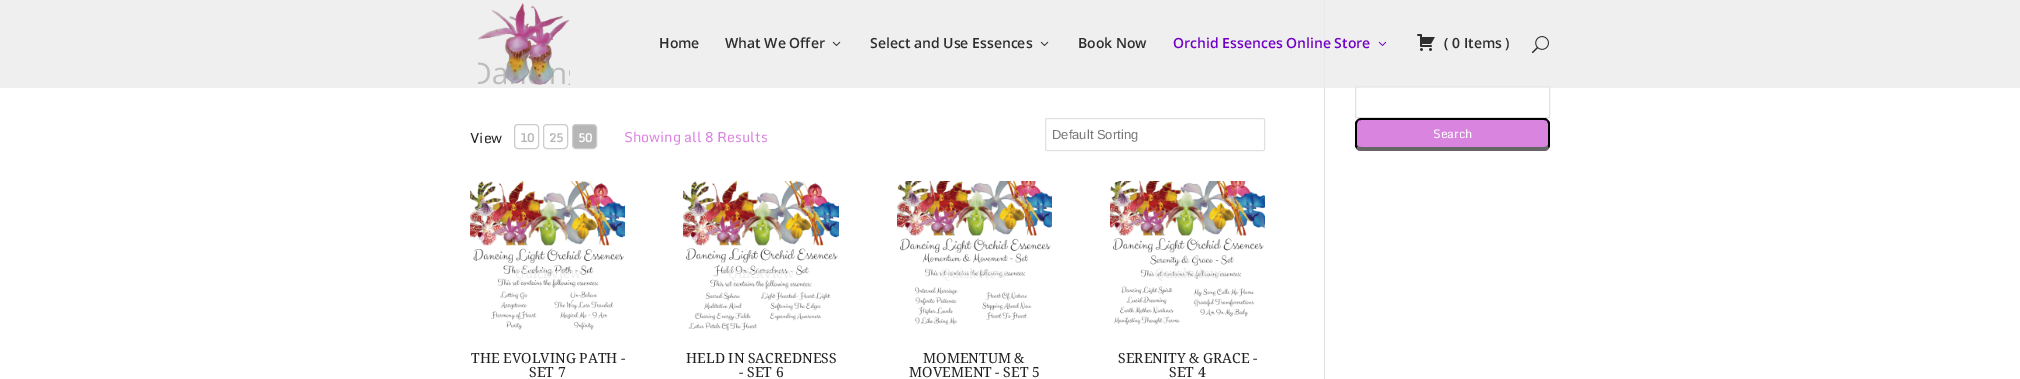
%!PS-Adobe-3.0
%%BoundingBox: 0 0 2020 379
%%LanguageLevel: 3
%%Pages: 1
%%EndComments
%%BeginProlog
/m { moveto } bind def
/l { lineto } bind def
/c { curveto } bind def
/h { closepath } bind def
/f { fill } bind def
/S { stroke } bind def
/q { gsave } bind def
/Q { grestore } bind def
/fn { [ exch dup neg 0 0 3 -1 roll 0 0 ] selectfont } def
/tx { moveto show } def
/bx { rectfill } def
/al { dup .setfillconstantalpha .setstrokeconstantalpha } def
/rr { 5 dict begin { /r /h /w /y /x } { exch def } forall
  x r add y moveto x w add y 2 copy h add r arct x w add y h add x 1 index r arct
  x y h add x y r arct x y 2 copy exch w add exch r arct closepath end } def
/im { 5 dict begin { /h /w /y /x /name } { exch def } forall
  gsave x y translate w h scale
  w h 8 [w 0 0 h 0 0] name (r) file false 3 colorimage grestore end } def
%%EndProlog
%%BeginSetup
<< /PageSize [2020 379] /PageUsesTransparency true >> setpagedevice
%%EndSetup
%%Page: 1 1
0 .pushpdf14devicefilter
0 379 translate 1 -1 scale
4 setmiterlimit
1 setgray
0 0 2020 379 bx
0.886 setgray
1324 0 1 379 bx
0.882 setgray
1355.5 86.5 194 31 rectstroke
0.75 al
0.918 setgray
0 0 2020 88 bx
1 al
(image0.raw) 478 3 92 82 im
/OpenSans-SemiBold 14 fn
0.176 setgray
(Home) 659 48 tx
(What We Offer) 725 48 tx
(image1.raw) 832 41 9 5 im
(Select and Use Essences) 870 48 tx
(image1.raw) 1040 41 9 5 im
(Book Now) 1078 48 tx
0.447 0 0.769 setrgbcolor
(Orchid Essences Online Store) 1173 48 tx
(image2.raw) 1378 41 9 5 im
(image3.raw) 1417 34 18 17 im
0.176 setgray
(\( 0 Items \)) 1444 48 tx
(image4.raw) 1532 36 17 18 im
/Monda-Regular 14 fn
0.133 setgray
(View) 470 143 tx
0.8 setgray
514.5 124.5 24 24 3.5 rr S
/Monda-Bold 12 fn
0.714 setgray
(10) 520 142 tx
0.8 setgray
543.5 124.5 24 24 3.5 rr S
0.714 setgray
(25) 549 142 tx
572.5 124.5 24 24 3.5 rr q f Q
0.8 setgray
S
1 setgray
(50) 578 142 tx
/Monda-Regular 14 fn
0.851 0.518 0.875 setrgbcolor
(Showing all 8 Results) 624 142 tx
0.882 setgray
1045.5 118.5 219 32 1.5 rr S
/LiberationSans-Regular 13 fn
0.467 setgray
(Default Sorting) 1052 139 tx
(image5.raw) 470 181 155 149 im
/DroidSerif-Regular 13 fn
0.925 setgray
(Quickview) 515 278 tx
/DroidSerif-Regular 14 fn
0.133 setgray
(THE EVOLVING PATH -) 471 363 tx
(SET 7) 529 377 tx
(image6.raw) 683 181 156 150 im
/DroidSerif-Regular 13 fn
0.925 setgray
(Quickview) 728 278 tx
/DroidSerif-Regular 14 fn
0.133 setgray
(HELD IN SACREDNESS) 686 363 tx
(- SET 6) 739 377 tx
(image7.raw) 897 181 155 144 im
/DroidSerif-Regular 13 fn
0.925 setgray
(Quickview) 941 278 tx
/DroidSerif-Regular 14 fn
0.133 setgray
(MOMENTUM &) 923 363 tx
(MOVEMENT - SET 5) 909 377 tx
(image8.raw) 1110 181 155 144 im
/DroidSerif-Regular 13 fn
0.925 setgray
(Quickview) 1155 278 tx
/DroidSerif-Regular 14 fn
0.133 setgray
(SERENITY & GRACE -) 1118 363 tx
(SET 4) 1169 377 tx
0.851 0.518 0.875 setrgbcolor
1355 118 195 33 6 rr f
0 setgray
1361 118 m 1360 118 1358 119 1357 120 c 1358 121 l 1359 120 1360 120 1361 120 c 1544 120 l 1545 120 1546 120 1547 121 c 1548 120 l 1547 119 1546 118 1544 118 c h f
1550 145 m 1550 124 l 1550 122.5 1549 121 1548 120 c 1547 121 l 1548 123.5 l 1548 145 l 1547.5 146 l 1548.5 148.5 l 1549.5 147.5 1550 146 1550 145 c h f
0.4 setgray
1361 151 m 1544 151 l 1546 151 1548 150 1549 148 c 1547 146 l 1547 147 1545 147 1544 147 c 1361 147 l 1360 147 1358 147 1358 146 c 1356 148 l 1357 150 1359 151 1361 151 c h f
0 setgray
1355 124 m 1355 145 l 1355 146 1355.5 147.5 1356.5 148.5 c 1357.5 146 l 1357 145 l 1357 123.5 l 1358 121 l 1357 120 l 1356 121 1355 122.5 1355 124 c h f
/Monda-Regular 12 fn
1 setgray
(Search) 1433 138 tx
.poppdf14devicefilter showpage
%%EOF
